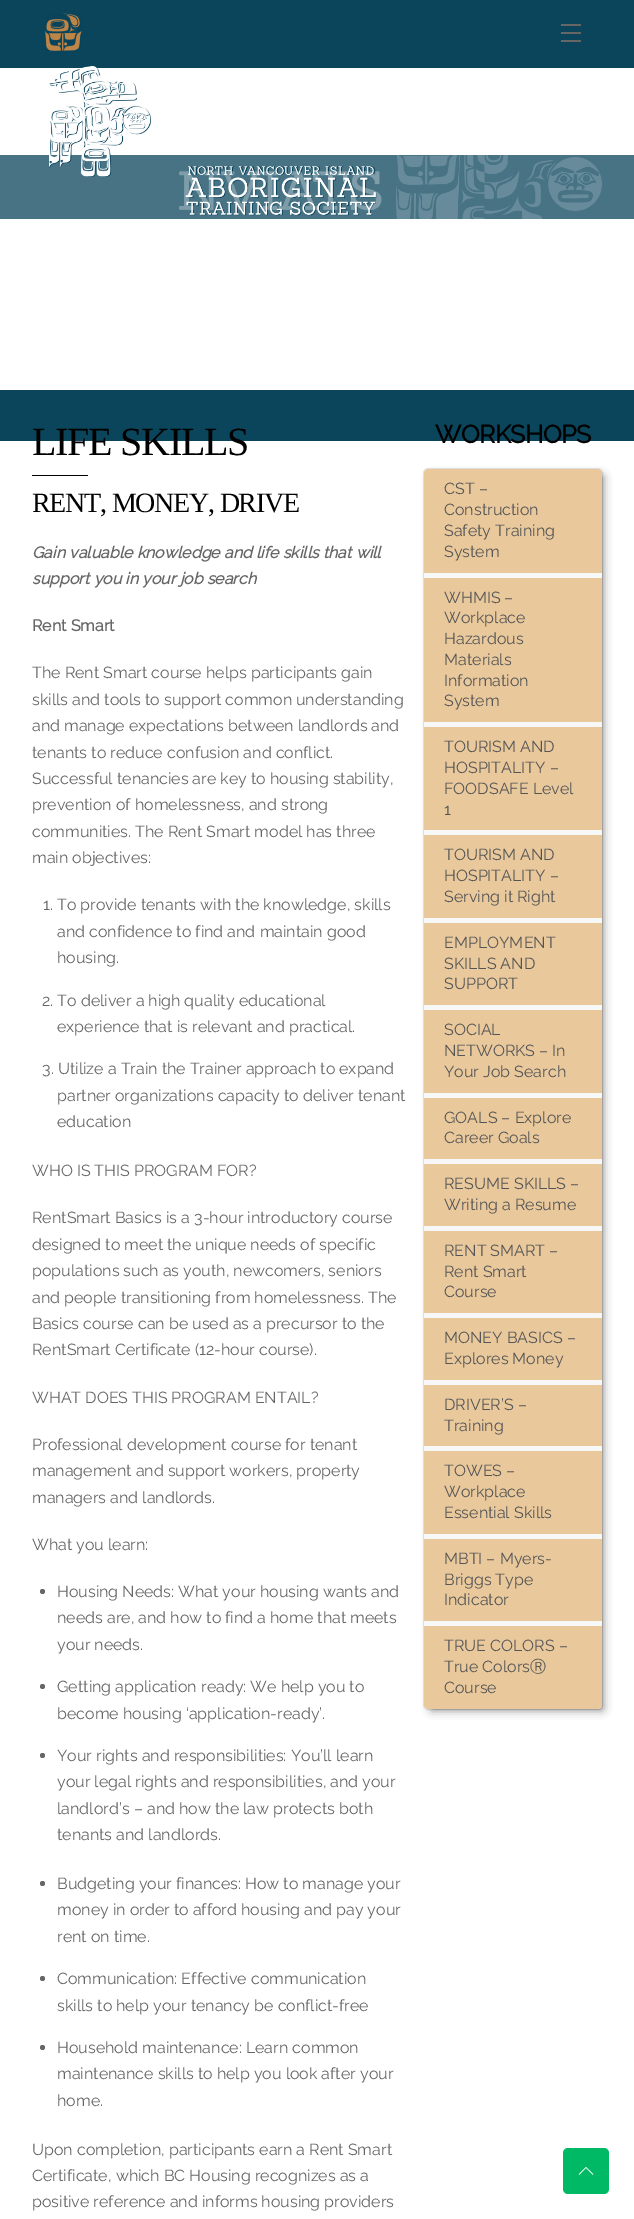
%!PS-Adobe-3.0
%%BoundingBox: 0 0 634 2219
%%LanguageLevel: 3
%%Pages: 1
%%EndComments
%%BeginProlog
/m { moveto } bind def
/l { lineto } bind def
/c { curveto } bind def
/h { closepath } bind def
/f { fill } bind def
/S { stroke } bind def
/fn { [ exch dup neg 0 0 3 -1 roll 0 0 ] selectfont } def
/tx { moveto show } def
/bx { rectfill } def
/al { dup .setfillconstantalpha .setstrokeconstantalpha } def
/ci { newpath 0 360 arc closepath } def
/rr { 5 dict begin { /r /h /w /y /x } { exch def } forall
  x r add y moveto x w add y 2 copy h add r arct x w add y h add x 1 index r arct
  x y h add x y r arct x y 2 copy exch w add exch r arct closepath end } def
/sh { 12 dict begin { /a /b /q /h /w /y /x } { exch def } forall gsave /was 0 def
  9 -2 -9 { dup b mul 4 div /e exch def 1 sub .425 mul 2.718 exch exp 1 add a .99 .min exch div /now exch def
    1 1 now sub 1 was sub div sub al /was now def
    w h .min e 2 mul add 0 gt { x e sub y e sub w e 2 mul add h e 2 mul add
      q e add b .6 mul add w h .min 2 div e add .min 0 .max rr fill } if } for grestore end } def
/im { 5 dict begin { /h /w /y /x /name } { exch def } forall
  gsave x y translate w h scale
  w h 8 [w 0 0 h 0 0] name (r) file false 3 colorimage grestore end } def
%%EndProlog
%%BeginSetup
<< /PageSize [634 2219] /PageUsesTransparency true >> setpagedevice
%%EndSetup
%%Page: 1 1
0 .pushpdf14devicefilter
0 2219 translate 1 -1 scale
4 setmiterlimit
1 setgray
0 0 634 2219 bx
0.039 0.271 0.361 setrgbcolor
0 0 634 68 bx
(image0.raw) 45 13 37 38 im
0.4 setgray
561 40 20 2 bx
561 24 20 2 bx
561 32 20 2 bx
0.278 0.451 0.522 setrgbcolor
0 155 634 64 bx
(image1.raw) 49 66 102 111 im
(image2.raw) 179 166 203 50 im
(image3.raw) 396 155 206 64 im
0.039 0.271 0.361 setrgbcolor
0 390 634 51 bx
/LiberationSerif-Regular 40 fn
0 setgray
32 455 m -1.25 0 (LIFE SKILLS) ashow
32 475 56 1 bx
/LiberationSerif-Regular 28 fn
32 512 m -1.25 0 (RENT, MONEY, DRIVE) ashow
/Raleway-BoldItalic 16 fn
0.4 setgray
(Gain valuable knowledge and life skills that will) 32 558 tx
(support you in your job search) 32 584 tx
/Raleway-Bold 16 fn
(Rent Smart) 32 631 tx
/Raleway-Thin 16 fn
(The Rent Smart course helps participants gain) 32 678 tx
(skills and tools to support common understanding) 32 705 tx
(and manage expectations between landlords and) 32 731 tx
(tenants to reduce confusion and conflict.) 32 758 tx
(Successful tenancies are key to housing stability,) 32 784 tx
(prevention of homelessness, and strong) 32 810 tx
(communities. The Rent Smart model has three) 32 837 tx
(main objectives:) 32 863 tx
(1. To provide tenants with the knowledge, skills) 43 910 tx
(and confidence to find and maintain good) 57 937 tx
(housing.) 57 963 tx
(2. To deliver a high quality educational) 42 1006 tx
(experience that is relevant and practical.) 57 1032 tx
(3. Utilize a Train the Trainer approach to expand) 42 1074 tx
(partner organizations capacity to deliver tenant) 57 1101 tx
(education) 57 1127 tx
(WHO IS THIS PROGRAM FOR?) 32 1176 tx
(RentSmart Basics is a 3-hour introductory course) 32 1223 tx
(designed to meet the unique needs of specific) 32 1250 tx
(populations such as youth, newcomers, seniors) 32 1276 tx
(and people transitioning from homelessness. The) 32 1303 tx
(Basics course can be used as a precursor to the) 32 1329 tx
(RentSmart Certificate \(12-hour course\).) 32 1355 tx
(WHAT DOES THIS PROGRAM ENTAIL?) 32 1403 tx
(Professional development course for tenant) 32 1450 tx
(management and support workers, property) 32 1476 tx
(managers and landlords.) 32 1503 tx
(What you learn:) 32 1550 tx
42.5 1591.5 2.5 ci f
(Housing Needs: What your housing wants and) 57 1597 tx
(needs are, and how to find a home that meets) 57 1623 tx
(your needs.) 57 1650 tx
42.5 1686.5 2.5 ci f
(Getting application ready: We help you to) 57 1692 tx
(become housing ‘application-ready’.) 57 1719 tx
42.5 1755.5 2.5 ci f
(Your rights and responsibilities: You’ll learn) 57 1761 tx
(your legal rights and responsibilities, and your) 57 1787 tx
(landlord’s – and how the law protects both) 57 1814 tx
(tenants and landlords.) 57 1840 tx
42.5 1883.5 2.5 ci f
(Budgeting your finances: How to manage your) 57 1889 tx
(money in order to afford housing and pay your) 57 1915 tx
(rent on time.) 57 1942 tx
42.5 1978.5 2.5 ci f
(Communication: Effective communication) 57 1984 tx
(skills to help your tenancy be conflict-free) 57 2011 tx
42.5 2047.5 2.5 ci f
(Household maintenance: Learn common) 57 2053 tx
(maintenance skills to help you look after your) 57 2079 tx
(home.) 57 2106 tx
(Upon completion, participants earn a Rent Smart) 32 2155 tx
(Certificate, which BC Housing recognizes as a) 32 2181 tx
(positive reference and informs housing providers) 32 2207 tx
/Raleway-Bold 25 fn
0 setgray
435 443 m -0.5 0 (WORKSHOPS) ashow
0.4 setgray
432 477 170 1232 0 5 1 sh
0.1 al
0 setgray
423.5 468.5 179 1241 4.5 rr S
1 al
0.969 setgray
424 469 178 1240 4 rr f
0.914 0.784 0.612 setrgbcolor
428 469 m 598 469 l 600 469 602 471 602 473 c 602 573 l 424 573 l 424 473 l 424 471 426 469 428 469 c h f
/Raleway-Thin 16 fn
0.333 setgray
(CST –) 444 494 tx
(Construction) 444 515 tx
(Safety Training) 444 536 tx
(System) 444 557 tx
0.914 0.784 0.612 setrgbcolor
424 578 178 144 bx
0.333 setgray
(WHMIS –) 444 603 tx
(Workplace) 444 623 tx
(Hazardous) 444 644 tx
(Materials) 444 665 tx
(Information) 444 686 tx
(System) 444 706 tx
0.914 0.784 0.612 setrgbcolor
424 727 178 103 bx
0.333 setgray
(TOURISM AND) 444 752 tx
(HOSPITALITY –) 444 773 tx
(FOODSAFE Level) 444 794 tx
(1) 444 815 tx
0.914 0.784 0.612 setrgbcolor
424 835 178 83 bx
0.333 setgray
(TOURISM AND) 444 860 tx
(HOSPITALITY –) 444 881 tx
(Serving it Right) 444 902 tx
0.914 0.784 0.612 setrgbcolor
424 923 178 82 bx
0.333 setgray
(EMPLOYMENT) 444 948 tx
(SKILLS AND) 444 969 tx
(SUPPORT) 444 989 tx
0.914 0.784 0.612 setrgbcolor
424 1010 178 83 bx
0.333 setgray
(SOCIAL) 444 1035 tx
(NETWORKS – In) 444 1056 tx
(Your Job Search) 444 1077 tx
0.914 0.784 0.612 setrgbcolor
424 1098 178 61 bx
0.333 setgray
(GOALS – Explore) 444 1123 tx
(Career Goals) 444 1143 tx
0.914 0.784 0.612 setrgbcolor
424 1164 178 62 bx
0.333 setgray
(RESUME SKILLS –) 444 1189 tx
(Writing a Resume) 444 1210 tx
0.914 0.784 0.612 setrgbcolor
424 1231 178 82 bx
0.333 setgray
(RENT SMART –) 444 1256 tx
(Rent Smart) 444 1277 tx
(Course) 444 1297 tx
0.914 0.784 0.612 setrgbcolor
424 1318 178 62 bx
0.333 setgray
(MONEY BASICS –) 444 1343 tx
(Explores Money) 444 1364 tx
0.914 0.784 0.612 setrgbcolor
424 1385 178 61 bx
0.333 setgray
(DRIVER’S –) 444 1410 tx
(Training) 444 1431 tx
0.914 0.784 0.612 setrgbcolor
424 1451 178 83 bx
0.333 setgray
(TOWES –) 444 1476 tx
(Workplace) 444 1497 tx
(Essential Skills) 444 1518 tx
0.914 0.784 0.612 setrgbcolor
424 1539 178 82 bx
0.333 setgray
(MBTI – Myers-) 444 1564 tx
(Briggs Type) 444 1585 tx
(Indicator) 444 1605 tx
0.914 0.784 0.612 setrgbcolor
424 1626 m 602 1626 l 602 1705 l 602 1707 600 1709 598 1709 c 428 1709 l 426 1709 424 1707 424 1705 c h f
0.333 setgray
(TRUE COLORS –) 444 1651 tx
(True Colors) 444 1672 tx
/WenQuanYiZenHei-Medium 16 fn
(Ⓡ) 530 1672 tx
/Raleway-Thin 16 fn
(Course) 444 1693 tx
0 0.725 0.392 setrgbcolor
563 2148 46 46 5 rr f
(image4.raw) 578 2167 16 8 im
.poppdf14devicefilter showpage
%%EOF
